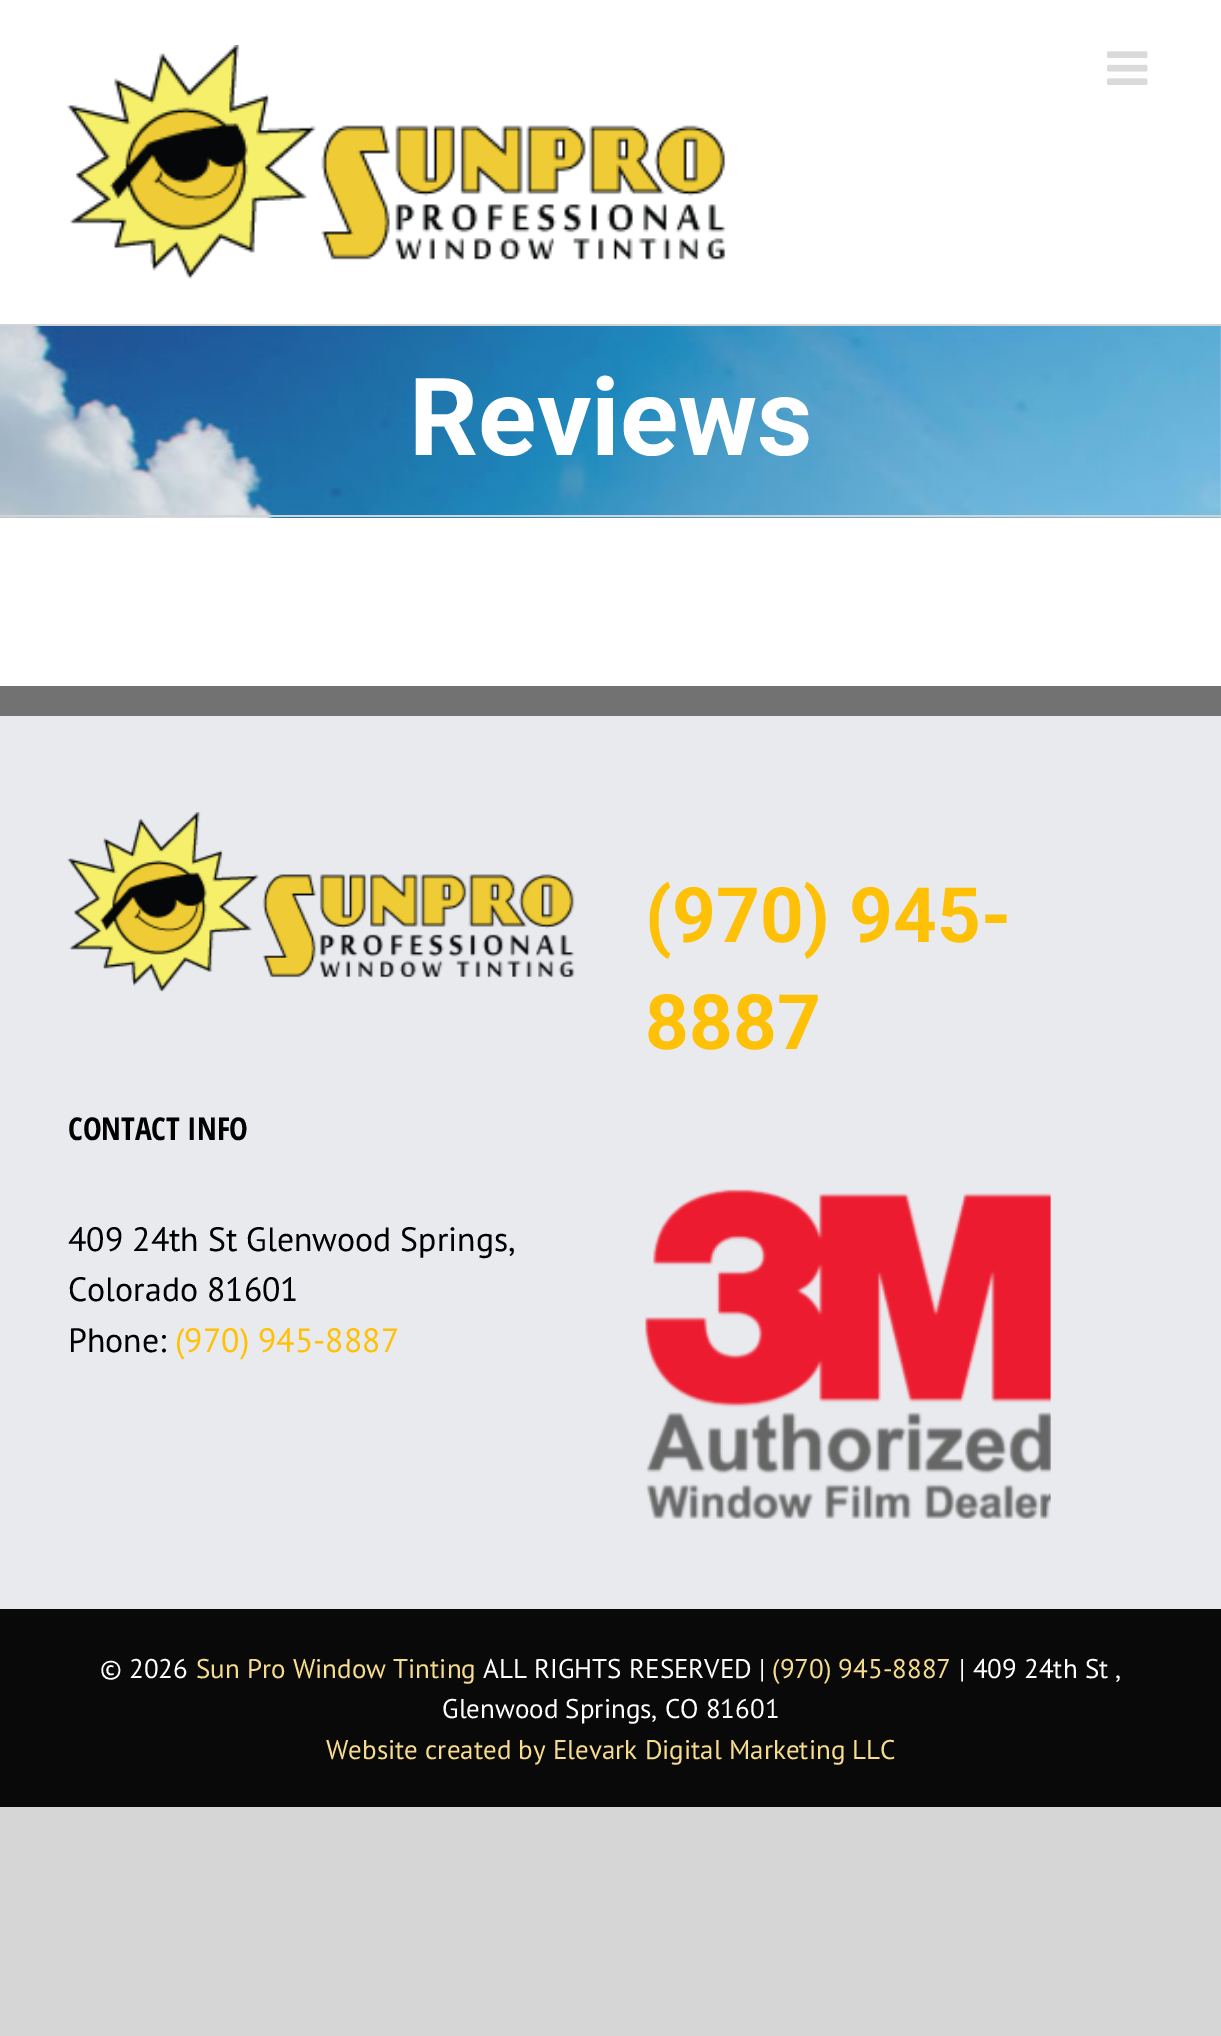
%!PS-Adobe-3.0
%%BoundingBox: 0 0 1221 2036
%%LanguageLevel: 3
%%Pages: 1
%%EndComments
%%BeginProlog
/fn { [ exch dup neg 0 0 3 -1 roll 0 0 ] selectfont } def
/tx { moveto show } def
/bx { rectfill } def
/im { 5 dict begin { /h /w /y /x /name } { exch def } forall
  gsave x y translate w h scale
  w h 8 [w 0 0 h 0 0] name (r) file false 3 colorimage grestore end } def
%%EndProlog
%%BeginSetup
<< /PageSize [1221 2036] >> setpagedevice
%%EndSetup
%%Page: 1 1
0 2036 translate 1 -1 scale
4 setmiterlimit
0.843 0.839 0.839 setrgbcolor
0 0 1221 2036 bx
1 setgray
0 0 1221 686 bx
(image0.raw) 67 45 659 234 im
(image1.raw) 1107 51 41 34 im
(image2.raw) 0 326 1221 192 im
0.824 0.827 0.831 setrgbcolor
0 324 1221 2 bx
0 515 1221 2 bx
/Roboto-Bold 108 fn
1 setgray
(Reviews) 409 455 tx
0.914 0.918 0.933 setrgbcolor
0 716 1221 893 bx
0.447 setgray
0 686 1221 30 bx
/Roboto-Bold 76.5 fn
1 0.757 0.027 setrgbcolor
(\(970\) 945-) 645 942 tx
(8887) 645 1049 tx
(image3.raw) 645 1189 406 330 im
(image4.raw) 67 812 508 180 im
/OpenSansCondensed-Bold 31.5 fn
0 setgray
(CONTACT INFO) 68 1140 tx
/PTSans-Regular 33.75 fn
(409 24th St Glenwood Springs,) 68 1251 tx
(Colorado 81601) 68 1301 tx
(Phone:) 68 1352 tx
1 0.757 0.027 setrgbcolor
(\(970\) 945-8887) 175 1352 tx
0.039 0.035 0.035 setrgbcolor
0 1609 1221 198 bx
/PTSans-Regular 27 fn
1 setgray
(© 2026) 100 1678 tx
0.973 0.863 0.553 setrgbcolor
(Sun Pro Window Tinting) 196 1678 tx
1 setgray
(ALL RIGHTS RESERVED |) 483 1678 tx
0.973 0.863 0.553 setrgbcolor
(\(970\) 945-8887) 772 1678 tx
1 setgray
(| 409 24th St ,) 959 1678 tx
(Glenwood Springs, CO 81601) 442 1718 tx
0.973 0.863 0.553 setrgbcolor
(Website created by Elevark Digital Marketing LLC) 326 1759 tx
showpage
%%EOF
